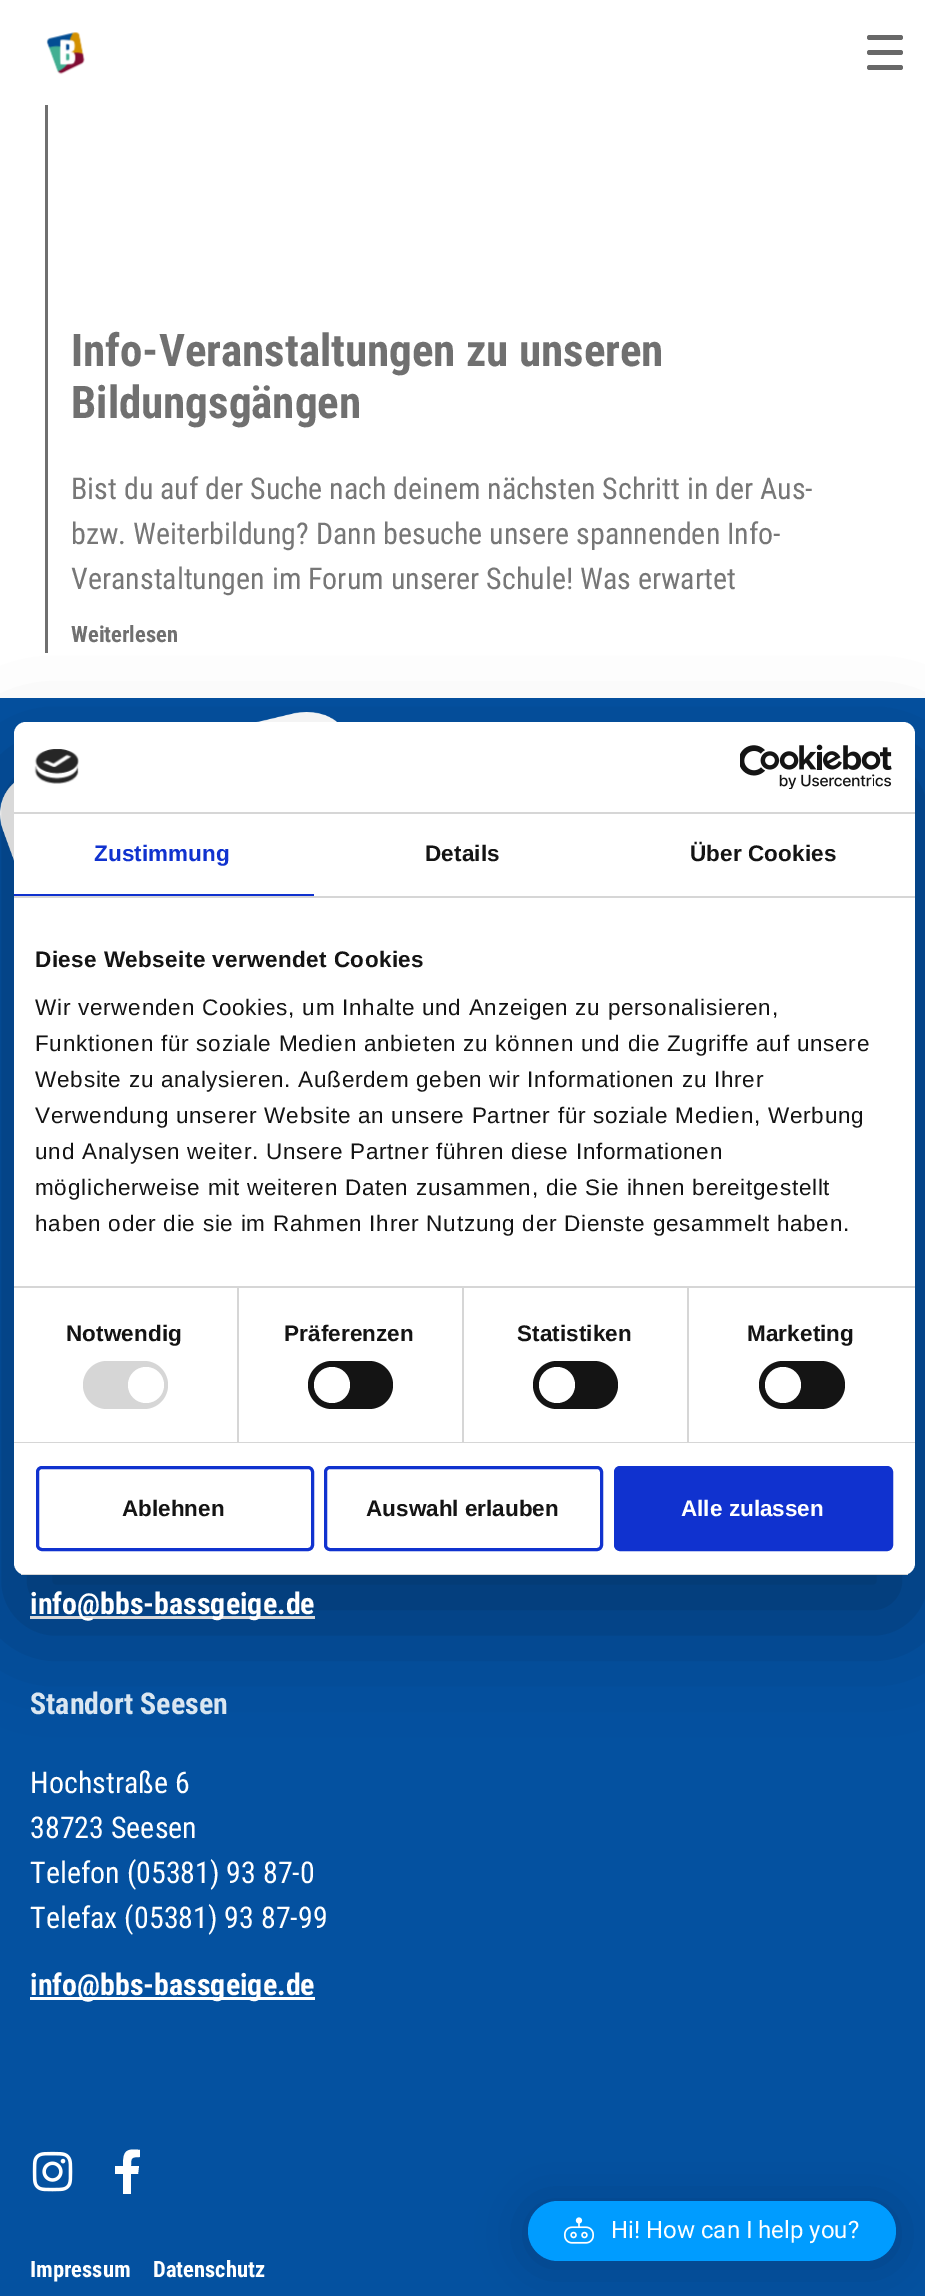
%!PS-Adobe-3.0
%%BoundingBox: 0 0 925 2296
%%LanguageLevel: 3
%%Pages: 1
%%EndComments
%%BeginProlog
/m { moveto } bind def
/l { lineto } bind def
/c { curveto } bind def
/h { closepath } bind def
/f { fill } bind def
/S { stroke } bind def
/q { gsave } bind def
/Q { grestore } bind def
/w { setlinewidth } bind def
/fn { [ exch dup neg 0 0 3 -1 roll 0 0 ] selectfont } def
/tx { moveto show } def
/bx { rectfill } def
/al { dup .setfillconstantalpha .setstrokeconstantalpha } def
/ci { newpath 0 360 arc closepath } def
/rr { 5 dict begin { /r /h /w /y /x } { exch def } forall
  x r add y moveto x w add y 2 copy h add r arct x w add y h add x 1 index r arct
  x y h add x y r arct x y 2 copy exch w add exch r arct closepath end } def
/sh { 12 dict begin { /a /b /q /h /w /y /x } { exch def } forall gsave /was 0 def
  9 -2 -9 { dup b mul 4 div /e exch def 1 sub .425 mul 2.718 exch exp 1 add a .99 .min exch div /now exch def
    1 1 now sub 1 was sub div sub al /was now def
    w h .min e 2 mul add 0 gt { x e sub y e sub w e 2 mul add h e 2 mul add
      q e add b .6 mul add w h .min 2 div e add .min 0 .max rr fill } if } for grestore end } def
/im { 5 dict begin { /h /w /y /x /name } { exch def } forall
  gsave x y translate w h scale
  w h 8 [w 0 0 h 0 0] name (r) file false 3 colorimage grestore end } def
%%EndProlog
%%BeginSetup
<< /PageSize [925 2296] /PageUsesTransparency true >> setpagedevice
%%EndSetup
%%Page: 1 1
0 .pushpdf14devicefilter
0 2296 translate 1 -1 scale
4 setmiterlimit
1 setgray
0 0 925 2296 bx
(image0.raw) 46 32 39 43 im
0.408 setgray
867 50 36 5 2.5 rr f
867 35 36 5 2.5 rr f
867 65 36 5 2.5 rr f
0.439 setgray
45 105 3 548 bx
/RobotoCondensed-Bold 45 fn
(Info-Veranstaltungen zu unseren) 71 366 tx
(Bildungsgängen) 71 418 tx
/RobotoCondensed-Regular 30 fn
0.467 setgray
(Bist du auf der Suche nach deinem nächsten Schritt in der Aus-) 71 499 tx
(bzw. Weiterbildung? Dann besuche unsere spannenden Info-) 71 544 tx
(Veranstaltungen im Forum unserer Schule! Was erwartet) 71 589 tx
/RobotoCondensed-Bold 22.5 fn
0.439 setgray
(Weiterlesen) 71 642 tx
0.016 0.318 0.627 setrgbcolor
0 698 925 1598 bx
(image3.raw) 0 712 337 149 im
1 setgray
30 1616 285 3 bx
0 setgray
14 770 901 853 12 51 0.3 sh
1 setgray
14 722 901 853 12 rr f
0.839 setgray
14 812 901 2 bx
(image1.raw) 34 749 45 35 im
(image2.raw) 740 744 152 45 im
14 896 901 2 bx
0.063 0.196 0.812 setrgbcolor
14 894 300 2 bx
/LiberationSans-Bold 22.5 fn
94 861 m 0.1 0 (Zustimmung) ashow
0.078 setgray
425 861 m 0.1 0 (Details) ashow
690 861 m 0.1 0 (Über Cookies) ashow
0.839 setgray
237 1287 2 155 bx
462 1287 2 155 bx
687 1287 2 155 bx
14 1286 901 2 bx
0.078 setgray
35 967 m 0.4 0 (Diese Webseite verwendet Cookies) ashow
/LiberationSans-Regular 22.5 fn
35 1015 m 0.75 0 (Wir verwenden Cookies, um Inhalte und Anzeigen zu personalisieren,) ashow
35 1051 m 0.75 0 (Funktionen für soziale Medien anbieten zu können und die Zugriffe auf unsere) ashow
35 1087 m 0.75 0 (Website zu analysieren. Außerdem geben wir Informationen zu Ihrer) ashow
35 1123 m 0.75 0 (Verwendung unserer Website an unsere Partner für soziale Medien, Werbung) ashow
35 1159 m 0.75 0 (und Analysen weiter. Unsere Partner führen diese Informationen) ashow
35 1195 m 0.75 0 (möglicherweise mit weiteren Daten zusammen, die Sie ihnen bereitgestellt) ashow
35 1231 m 0.75 0 (haben oder die sie im Rahmen Ihrer Nutzung der Dienste gesammelt haben.) ashow
0.839 setgray
14 1442 901 1 bx
/LiberationSans-Bold 22.5 fn
0.078 setgray
66 1341 m 0.1 0 (Notwendig) ashow
0.839 setgray
83 1361 85 48 24 rr f
1 setgray
146 1385 18 ci f
0.078 setgray
284 1341 m 0.1 0 (Präferenzen) ashow
308 1361 85 48 24 rr f
1 setgray
332 1385 18 ci f
0.078 setgray
517 1341 m 0.1 0 (Statistiken) ashow
533 1361 85 48 24 rr f
1 setgray
557 1385 18 ci f
0.078 setgray
747 1341 m 0.1 0 (Marketing) ashow
759 1361 86 48 24 rr f
1 setgray
783 1385 18 ci f
q
14 722 901 853 12 rr clip newpath
0.839 setgray
14 1574 901 1 bx
Q
0.063 0.196 0.812 setrgbcolor
3 w
37.5 1467.5 275 82 4.5 rr S
0.078 setgray
(Ablehnen) 122 1516 tx
0.063 0.196 0.812 setrgbcolor
325.5 1467.5 276 82 4.5 rr S
0.078 setgray
(Auswahl erlauben) 366 1516 tx
0.063 0.196 0.812 setrgbcolor
615.5 1467.5 276 82 4.5 rr q f Q
S
1 setgray
(Alle zulassen) 681 1516 tx
/RobotoCondensed-Bold 30 fn
(info@bbs-bassgeige.de) 30 1614 tx
0.855 0.902 0.945 setrgbcolor
(Standort Seesen) 30 1714 tx
/RobotoCondensed-Regular 30 fn
1 setgray
(Hochstraße 6) 30 1793 tx
(38723 Seesen) 30 1838 tx
(Telefon \(05381\) 93 87-0) 30 1883 tx
(Telefax \(05381\) 93 87-99) 30 1928 tx
30 1997 285 3 bx
/RobotoCondensed-Bold 30 fn
(info@bbs-bassgeige.de) 30 1995 tx
(image4.raw) 32 2151 41 41 im
138 2174 m 131 2174 l 131 2194 l 123 2194 l 123 2174 l 115 2174 l 115 2166 l 123 2166 l 123 2152 125 2148 140 2150 c 140 2157 l 131 2157 131 2158 131 2166 c 139 2166 l h f
/RobotoCondensed-Bold 22.5 fn
(Impressum) 30 2277 tx
(Datenschutz) 153 2277 tx
0 setgray
528 2204 368 60 30 24 0.16 sh
0 0.612 1 setrgbcolor
528 2201 368 60 30 rr f
(image5.raw) 564 2217 30 27 im
/Roboto-Regular 24 fn
1 setgray
(Hi! How can I help you?) 611 2238 tx
.poppdf14devicefilter showpage
%%EOF
